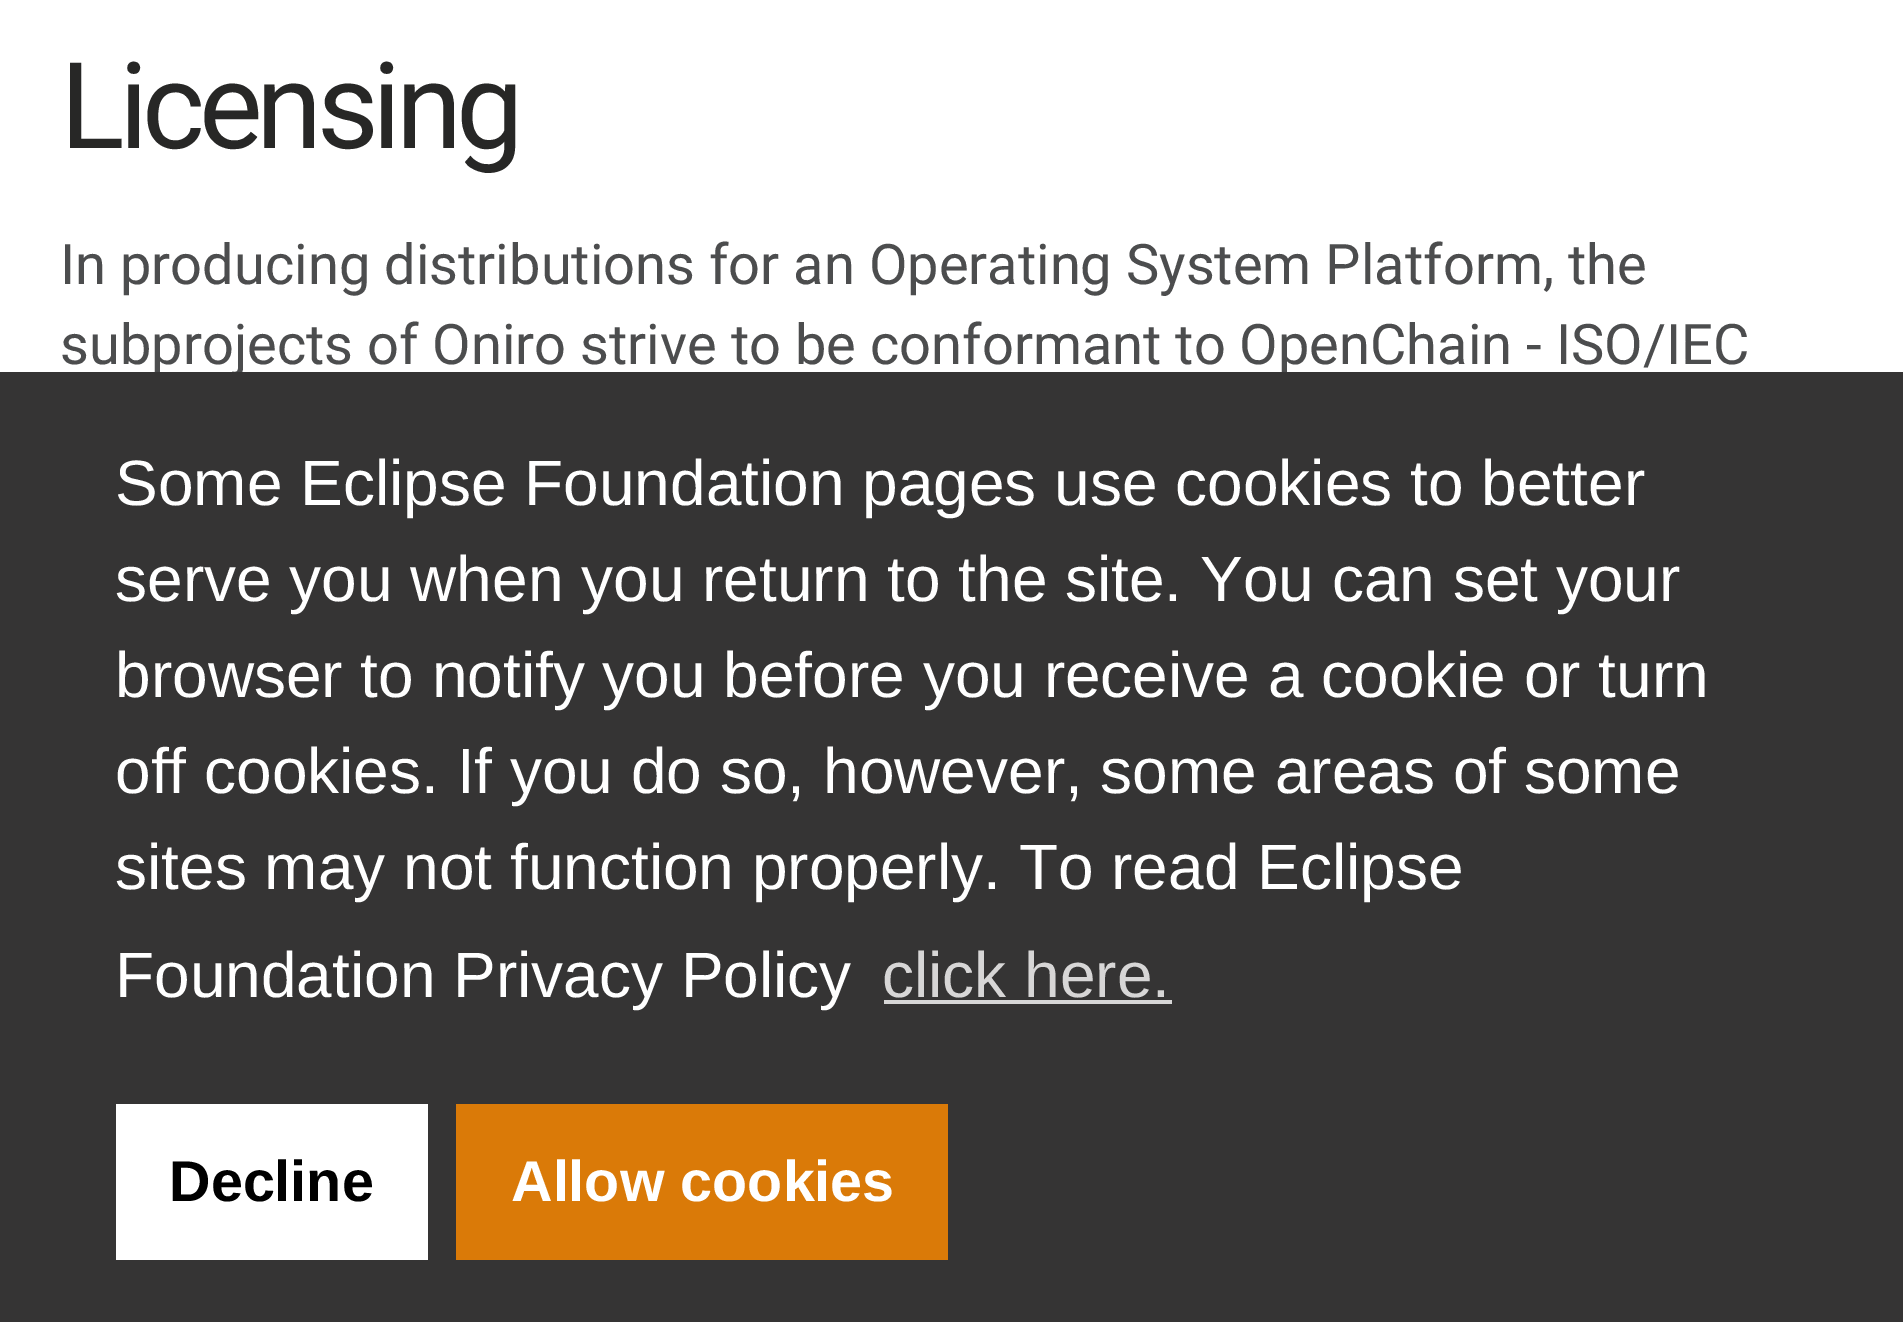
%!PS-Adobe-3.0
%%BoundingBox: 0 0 1903 1322
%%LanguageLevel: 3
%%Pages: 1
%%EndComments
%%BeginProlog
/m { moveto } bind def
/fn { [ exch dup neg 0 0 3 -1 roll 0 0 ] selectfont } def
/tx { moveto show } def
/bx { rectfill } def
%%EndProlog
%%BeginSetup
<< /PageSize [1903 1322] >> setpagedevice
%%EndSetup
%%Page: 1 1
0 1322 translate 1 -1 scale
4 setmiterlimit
1 setgray
0 0 1903 1322 bx
/Roboto-Regular 120 fn
0.153 0.153 0.149 setrgbcolor
60 148 m -6 0 (Licensing) ashow
/Roboto-Regular 56 fn
0.298 0.302 0.306 setrgbcolor
(In producing distributions for an Operating System Platform, the) 60 284 tx
(subprojects of Oniro strive to be conformant to OpenChain - ISO/IEC) 60 364 tx
0.208 0.204 0.204 setrgbcolor
0 372 1903 950 bx
/LiberationSans-Regular 64 fn
1 setgray
(Some Eclipse Foundation pages use cookies to better) 115 505 tx
(serve you when you return to the site. You can set your) 115 601 tx
(browser to notify you before you receive a cookie or turn) 115 697 tx
(off cookies. If you do so, however, some areas of some) 115 793 tx
(sites may not function properly. To read Eclipse) 115 889 tx
(Foundation Privacy Policy) 115 997 tx
0.843 0.839 0.839 setrgbcolor
(click here.) 882 997 tx
884 1000 288 4 bx
1 setgray
116 1104 312 156 bx
/LiberationSans-Bold 57.5 fn
0 setgray
(Decline) 169 1201 tx
0.855 0.478 0.031 setrgbcolor
456 1104 492 156 bx
1 setgray
(Allow cookies) 511 1201 tx
showpage
%%EOF
